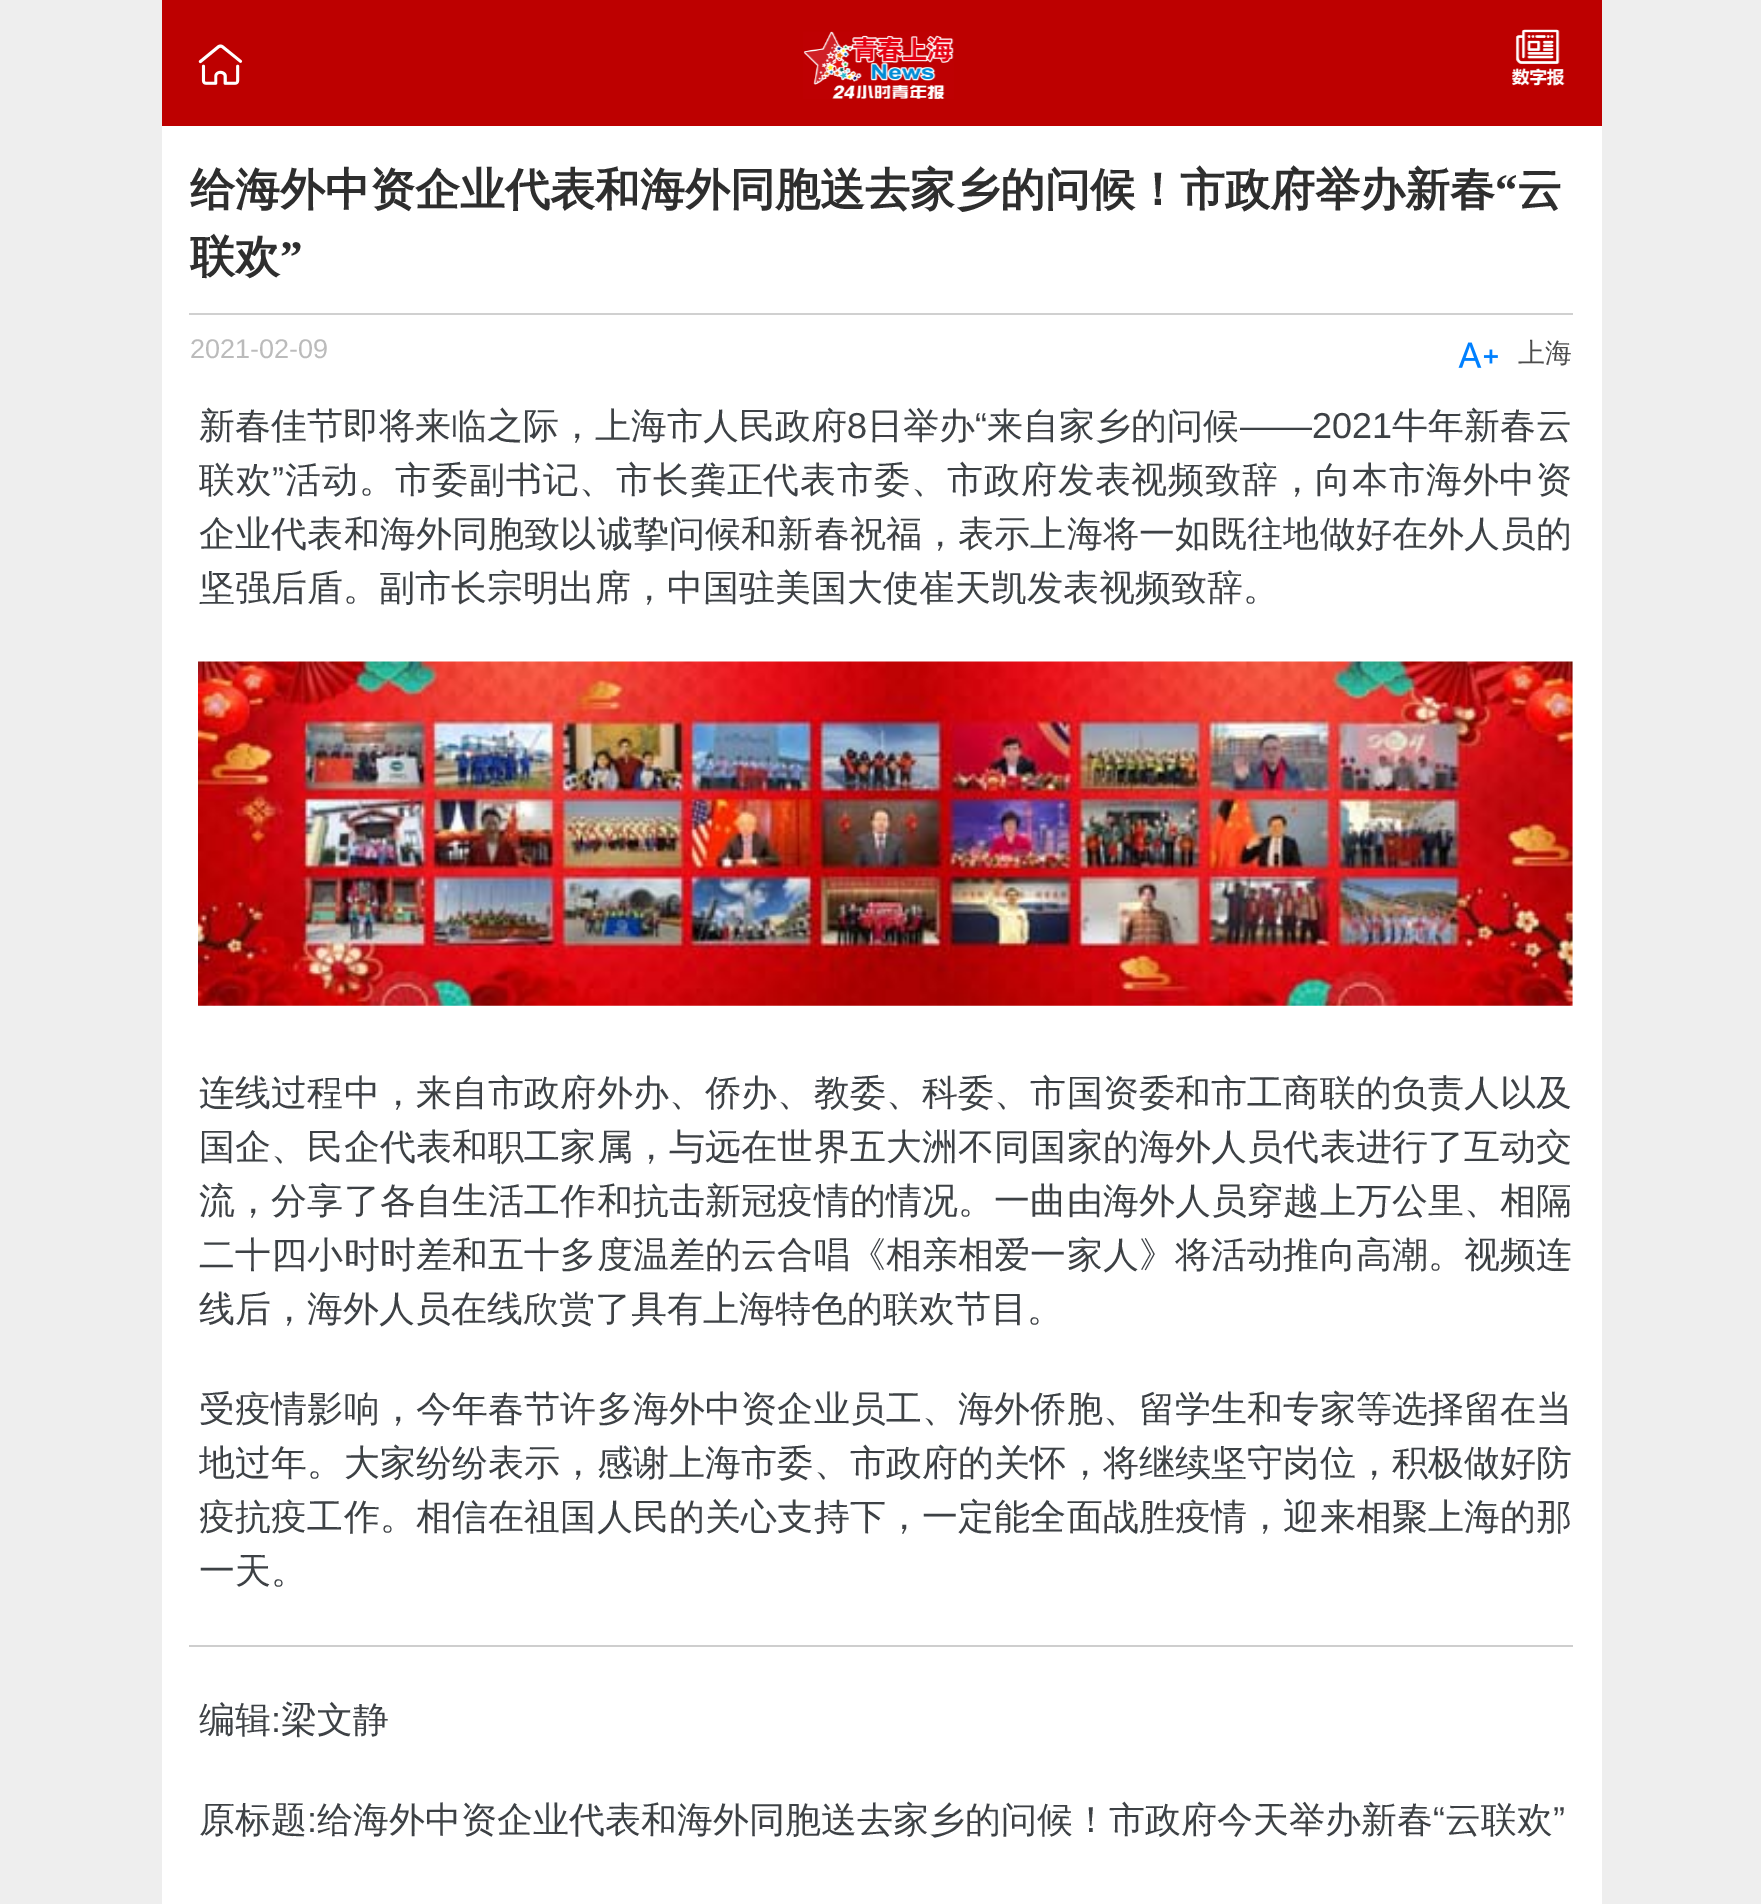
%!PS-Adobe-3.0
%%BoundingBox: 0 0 1761 1904
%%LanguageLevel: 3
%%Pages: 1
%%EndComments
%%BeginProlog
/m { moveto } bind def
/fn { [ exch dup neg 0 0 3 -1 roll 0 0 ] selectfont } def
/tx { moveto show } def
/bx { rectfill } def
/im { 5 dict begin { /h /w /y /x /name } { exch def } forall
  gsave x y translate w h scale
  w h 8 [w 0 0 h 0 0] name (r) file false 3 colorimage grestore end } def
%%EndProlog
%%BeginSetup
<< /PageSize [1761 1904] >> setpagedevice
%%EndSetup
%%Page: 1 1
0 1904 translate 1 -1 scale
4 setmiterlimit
0.933 setgray
0 0 1761 1904 bx
1 setgray
162 126 1440 1778 bx
0.741 0 0 setrgbcolor
162 0 1440 126 bx
(image0.raw) 198 44 45 41 im
(image1.raw) 803 31 151 68 im
(image2.raw) 1512 29 53 57 im
0.816 setgray
189 313 1384 2 bx
/WenQuanYiZenHei-Bold 45 fn
0.18 setgray
(给海外中资企业代表和海外同胞送去家乡的问候！市政府举办新春) 190 205 tx
/LiberationSerif-Bold 45 fn
(“) 1495 205 tx
/WenQuanYiZenHei-Bold 45 fn
(云) 1517 205 tx
(联欢) 190 272 tx
/LiberationSerif-Bold 45 fn
(”) 280 272 tx
/LiberationSans-Regular 27 fn
0.733 setgray
(2021-02-09) 190 358 tx
(image3.raw) 1458 342 40 26 im
/WenQuanYiZenHei-Medium 27 fn
0.298 setgray
(上海) 1518 362 tx
/WenQuanYiZenHei-Medium 36 fn
0.239 0.255 0.271 setrgbcolor
(新春佳节即将来临之际，上海市人民政府) 199 438 tx
/LiberationSans-Regular 36 fn
(8) 847 438 tx
/WenQuanYiZenHei-Medium 36 fn
(日举办) 867 438 tx
/LiberationSans-Regular 36 fn
(“) 975 438 tx
/WenQuanYiZenHei-Medium 36 fn
(来自家乡的问候) 987 438 tx
/LiberationSans-Regular 36 fn
(——2021) 1240 438 tx
/WenQuanYiZenHei-Medium 36 fn
(牛年新春云) 1392 438 tx
199 492 m 0.8 0 (联欢) ashow
/LiberationSans-Regular 36 fn
272 492 m 0.8 0 (”) ashow
/WenQuanYiZenHei-Medium 36 fn
285 492 m 0.8 0 (活动。市委副书记、市长龚正代表市委、市政府发表视频致辞，向本市海外中资) ashow
199 546 m 0.15 0 (企业代表和海外同胞致以诚挚问候和新春祝福，表示上海将一如既往地做好在外人员的) ashow
(坚强后盾。副市长宗明出席，中国驻美国大使崔天凯发表视频致辞。) 199 600 tx
(image4.raw) 198 661 1375 345 im
199 1105 m 0.15 0 (连线过程中，来自市政府外办、侨办、教委、科委、市国资委和市工商联的负责人以及) ashow
199 1159 m 0.15 0 (国企、民企代表和职工家属，与远在世界五大洲不同国家的海外人员代表进行了互动交) ashow
199 1213 m 0.15 0 (流，分享了各自生活工作和抗击新冠疫情的情况。一曲由海外人员穿越上万公里、相隔) ashow
199 1267 m 0.15 0 (二十四小时时差和五十多度温差的云合唱《相亲相爱一家人》将活动推向高潮。视频连) ashow
(线后，海外人员在线欣赏了具有上海特色的联欢节目。) 199 1321 tx
199 1421 m 0.15 0 (受疫情影响，今年春节许多海外中资企业员工、海外侨胞、留学生和专家等选择留在当) ashow
199 1475 m 0.15 0 (地过年。大家纷纷表示，感谢上海市委、市政府的关怀，将继续坚守岗位，积极做好防) ashow
199 1529 m 0.15 0 (疫抗疫工作。相信在祖国人民的关心支持下，一定能全面战胜疫情，迎来相聚上海的那) ashow
(一天。) 199 1583 tx
0.808 setgray
189 1645 1384 2 bx
0.239 0.255 0.271 setrgbcolor
(编辑) 199 1732 tx
/LiberationSans-Regular 36 fn
(:) 271 1732 tx
/WenQuanYiZenHei-Medium 36 fn
(梁文静) 281 1732 tx
(原标题) 199 1832 tx
/LiberationSans-Regular 36 fn
(:) 307 1832 tx
/WenQuanYiZenHei-Medium 36 fn
(给海外中资企业代表和海外同胞送去家乡的问候！市政府今天举办新春) 317 1832 tx
/LiberationSans-Regular 36 fn
(“) 1433 1832 tx
/WenQuanYiZenHei-Medium 36 fn
(云联欢) 1445 1832 tx
/LiberationSans-Regular 36 fn
(”) 1553 1832 tx
showpage
%%EOF
